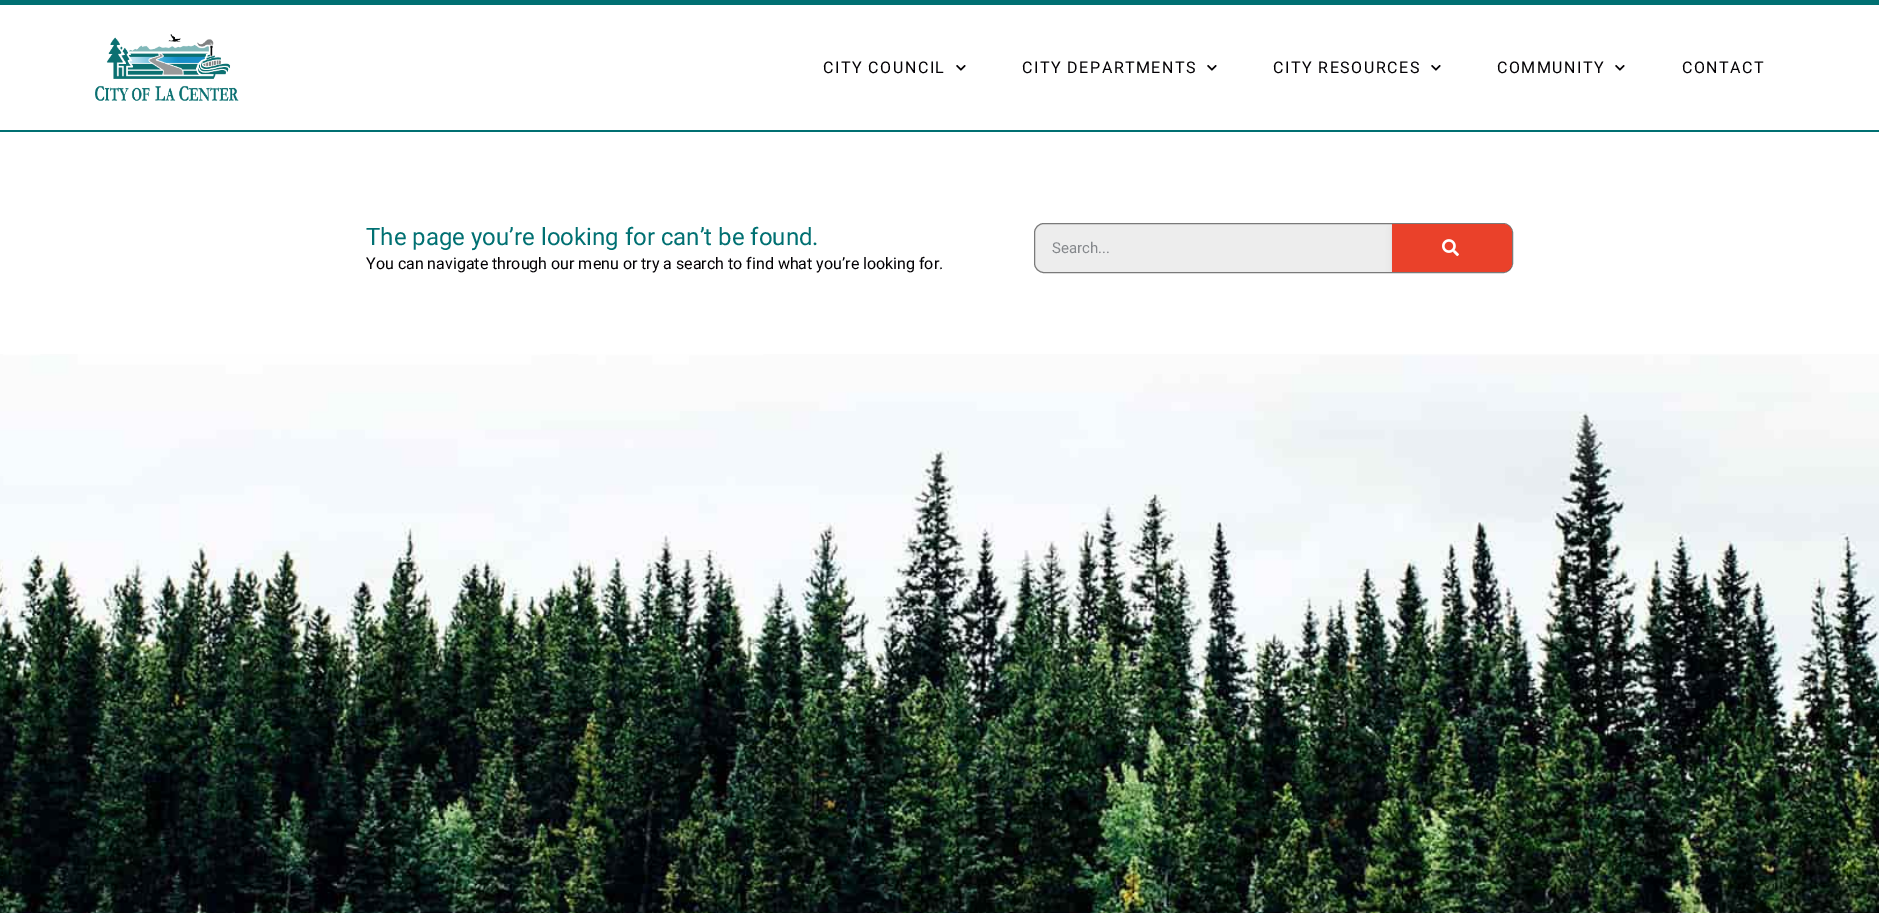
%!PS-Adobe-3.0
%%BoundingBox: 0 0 1879 913
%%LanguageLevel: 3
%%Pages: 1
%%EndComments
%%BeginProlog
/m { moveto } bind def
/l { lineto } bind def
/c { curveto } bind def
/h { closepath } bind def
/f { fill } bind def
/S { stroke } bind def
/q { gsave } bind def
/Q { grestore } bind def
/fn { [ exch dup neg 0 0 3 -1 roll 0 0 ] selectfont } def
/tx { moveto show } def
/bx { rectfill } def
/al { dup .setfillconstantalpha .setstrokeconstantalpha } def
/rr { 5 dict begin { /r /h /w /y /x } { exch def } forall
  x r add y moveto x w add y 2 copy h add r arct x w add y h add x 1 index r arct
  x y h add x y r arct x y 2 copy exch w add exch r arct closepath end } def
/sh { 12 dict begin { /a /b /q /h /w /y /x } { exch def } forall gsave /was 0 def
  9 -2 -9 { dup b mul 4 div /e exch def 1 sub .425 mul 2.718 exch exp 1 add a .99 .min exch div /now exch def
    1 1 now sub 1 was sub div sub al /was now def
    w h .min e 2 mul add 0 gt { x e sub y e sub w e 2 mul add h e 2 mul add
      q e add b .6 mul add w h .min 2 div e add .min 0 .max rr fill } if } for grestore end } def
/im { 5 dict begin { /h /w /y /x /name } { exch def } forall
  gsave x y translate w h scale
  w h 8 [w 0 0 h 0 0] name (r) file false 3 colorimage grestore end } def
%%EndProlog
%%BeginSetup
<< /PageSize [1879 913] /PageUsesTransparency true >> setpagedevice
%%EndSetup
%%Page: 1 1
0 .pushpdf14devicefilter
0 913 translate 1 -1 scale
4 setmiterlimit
1 setgray
0 0 1879 913 bx
0 0.439 0.447 setrgbcolor
0 0 1879 5 bx
0 130 1879 2 bx
(image0.raw) 95 34 144 67 im
/Roboto-Regular 16 fn
0.012 0.004 0.016 setrgbcolor
823 73 m 1.5 0 (CITY COUNCIL) ashow
(image1.raw) 956 65 10 6 im
1022 73 m 1.5 0 (CITY DEPARTMENTS) ashow
(image1.raw) 1207 65 10 6 im
1273 73 m 1.5 0 (CITY RESOURCES) ashow
(image1.raw) 1431 65 10 6 im
1497 73 m 1.5 0 (COMMUNITY) ashow
(image1.raw) 1615 65 10 6 im
1682 73 m 1.5 0 (CONTACT) ashow
(image2.raw) 0 354 1879 559 im
/Roboto-Regular 24 fn
0 0.439 0.447 setrgbcolor
(The page you’re looking for can’t be found.) 366 245 tx
/Roboto-Regular 16 fn
0.012 0.004 0.016 setrgbcolor
(You can navigate through our menu or try a search to find what you’re looking for.) 366 269 tx
0.929 setgray
1034.5 223.5 478 49 9.5 rr q f Q
0.478 setgray
S
/Roboto-Regular 15 fn
0.522 0.533 0.549 setrgbcolor
(Search...) 1052 253 tx
q
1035 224 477 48 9 rr clip newpath
0 setgray
1397 229 120 48 0 5 0.24 sh
Q
0.918 0.255 0.165 setrgbcolor
1392 224 m 1503 224 l 1508 224 1512 228 1512 233 c 1512 263 l 1512 268 1508 272 1503 272 c 1392 272 l h f
(image3.raw) 1442 239 17 18 im
.poppdf14devicefilter showpage
%%EOF
